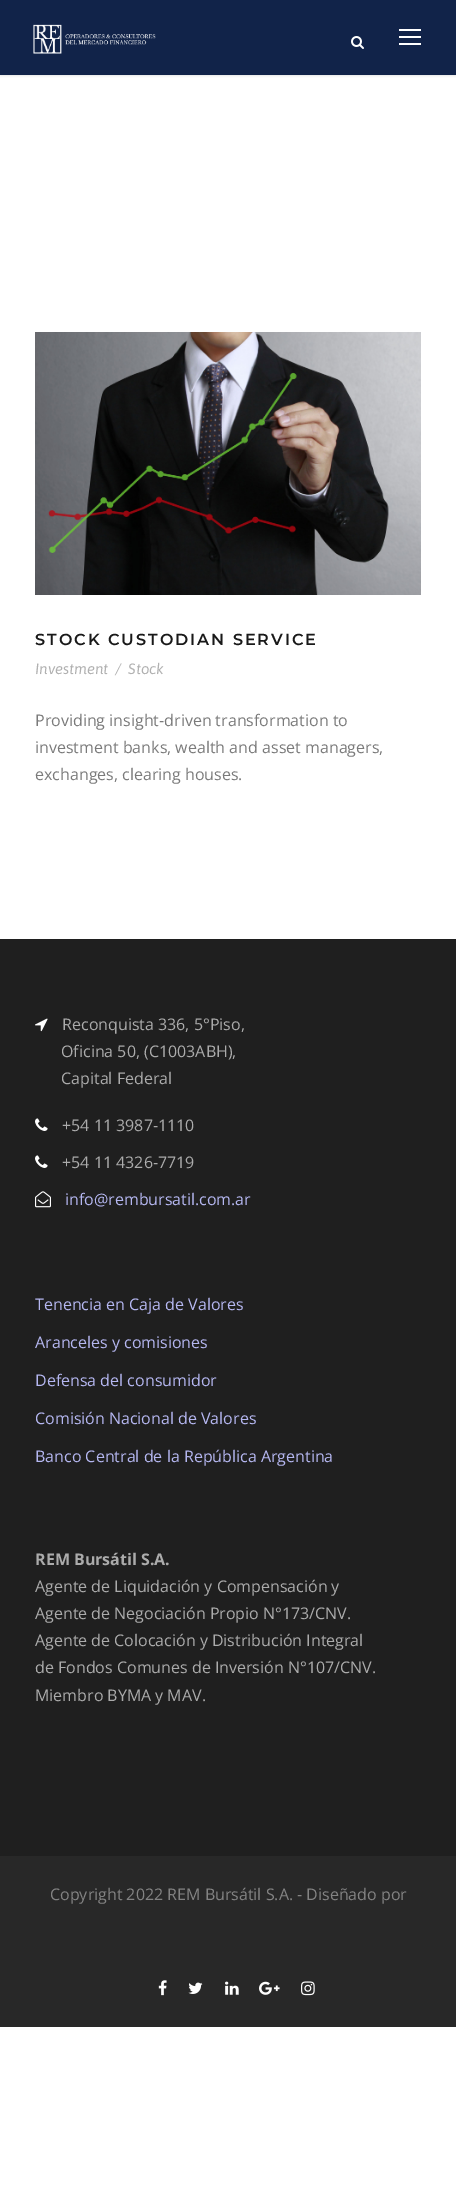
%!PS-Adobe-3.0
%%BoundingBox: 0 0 456 2205
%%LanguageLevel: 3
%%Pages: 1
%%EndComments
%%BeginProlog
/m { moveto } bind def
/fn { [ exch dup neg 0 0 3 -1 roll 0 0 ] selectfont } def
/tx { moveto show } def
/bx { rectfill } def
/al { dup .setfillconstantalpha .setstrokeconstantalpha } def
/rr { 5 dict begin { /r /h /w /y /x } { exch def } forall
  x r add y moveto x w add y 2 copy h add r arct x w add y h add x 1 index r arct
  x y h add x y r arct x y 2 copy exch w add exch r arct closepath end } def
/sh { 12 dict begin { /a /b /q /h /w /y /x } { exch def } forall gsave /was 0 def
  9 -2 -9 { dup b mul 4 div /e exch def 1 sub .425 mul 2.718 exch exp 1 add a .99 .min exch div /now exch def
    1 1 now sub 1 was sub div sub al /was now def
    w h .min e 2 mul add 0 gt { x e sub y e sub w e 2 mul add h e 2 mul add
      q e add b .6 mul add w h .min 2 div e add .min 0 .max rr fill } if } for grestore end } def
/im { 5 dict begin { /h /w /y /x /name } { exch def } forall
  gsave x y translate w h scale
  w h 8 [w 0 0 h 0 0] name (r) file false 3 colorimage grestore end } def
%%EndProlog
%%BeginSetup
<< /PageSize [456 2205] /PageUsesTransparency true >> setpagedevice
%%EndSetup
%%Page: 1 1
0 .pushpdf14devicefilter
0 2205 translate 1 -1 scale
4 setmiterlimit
1 setgray
0 0 456 2205 bx
0 setgray
0 1 456 75 0 1 0.1 sh
0.067 0.137 0.286 setrgbcolor
0 0 456 75 bx
(image0.raw) 33 24 123 30 im
(image1.raw) 351 36 13 13 im
1 setgray
399 29 22 2 bx
399 36 22 2 bx
399 43 22 2 bx
(image2.raw) 35 332 386 263 im
/Montserrat-SemiBold 16 fn
0.098 setgray
35 645 m 2 0 (STOCK CUSTODIAN SERVICE) ashow
/Asap-Italic 15 fn
0.694 setgray
(Investment) 35 674 tx
(/) 115 674 tx
(Stock) 128 674 tx
/OpenSans-Regular 16 fn
0.478 setgray
(Providing insight-driven transformation to) 35 726 tx
(investment banks, wealth and asset managers,) 35 753 tx
(exchanges, clearing houses.) 35 780 tx
0.122 setgray
0 939 456 917 bx
(image3.raw) 35 1018 13 14 im
0.671 setgray
(Reconquista 336, 5°Piso,) 62 1030 tx
(Oficina 50, \(C1003ABH\),) 61 1057 tx
(Capital Federal) 61 1084 tx
(image4.raw) 35 1118 13 13 im
(+54 11 3987-1110) 62 1131 tx
(image4.raw) 35 1155 13 13 im
(+54 11 4326-7719) 62 1168 tx
(image5.raw) 35 1191 16 17 im
0.71 0.718 0.945 setrgbcolor
(info@rembursatil.com.ar) 65 1205 tx
(Tenencia en Caja de Valores) 35 1310 tx
(Aranceles y comisiones) 35 1348 tx
(Defensa del consumidor) 35 1386 tx
(Comisión Nacional de Valores) 35 1424 tx
(Banco Central de la República Argentina) 35 1462 tx
/OpenSans-Bold 16 fn
0.671 setgray
(REM Bursátil S.A.) 35 1565 tx
/OpenSans-Regular 16 fn
(Agente de Liquidación y Compensación y) 35 1592 tx
(Agente de Negociación Propio N°173/CNV.) 35 1619 tx
(Agente de Colocación y Distribución Integral) 35 1646 tx
(de Fondos Comunes de Inversión N°107/CNV.) 35 1673 tx
(Miembro BYMA y MAV.) 35 1701 tx
0.157 setgray
0 1856 456 171 bx
0.514 setgray
(Copyright 2022 REM Bursátil S.A. - Diseñado por) 50 1900 tx
(image6.raw) 158 1980 9 16 im
(image7.raw) 188 1982 15 12 im
(image8.raw) 225 1981 14 14 im
(image9.raw) 259 1981 21 14 im
(image10.raw) 301 1981 14 15 im
.poppdf14devicefilter showpage
%%EOF
